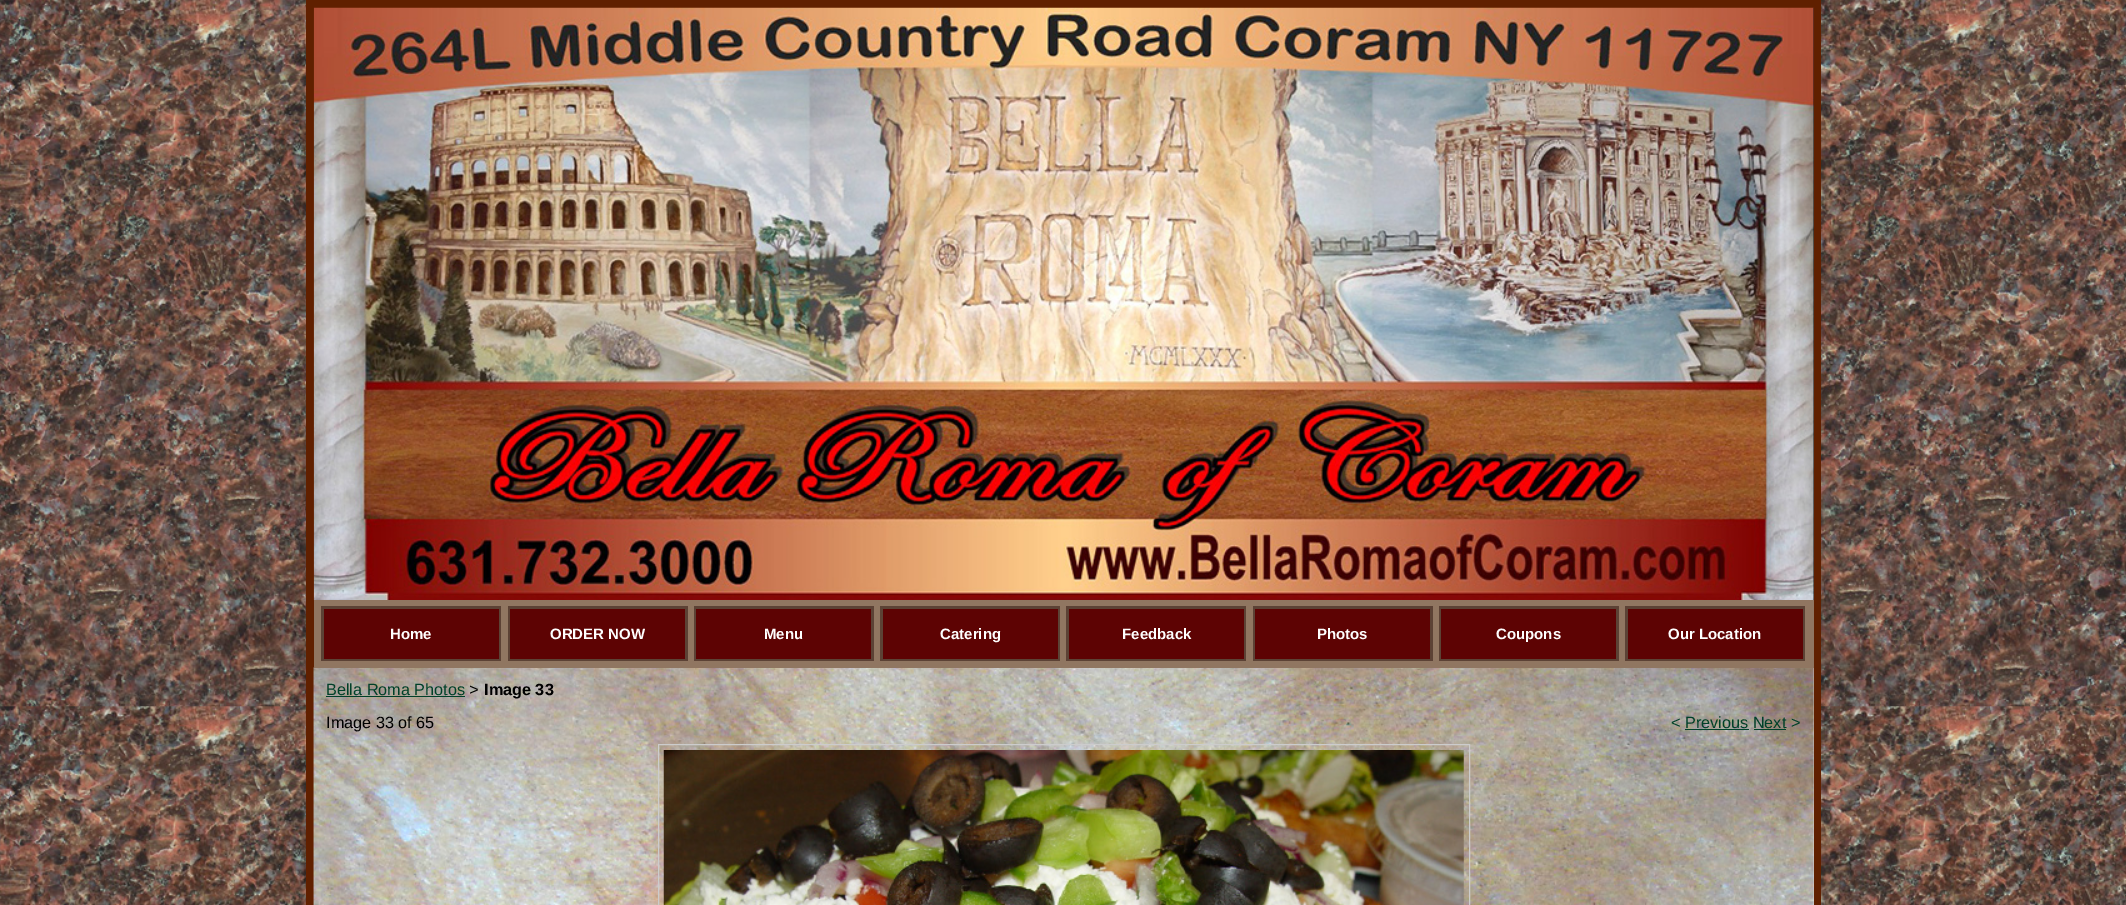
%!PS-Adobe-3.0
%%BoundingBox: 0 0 2126 905
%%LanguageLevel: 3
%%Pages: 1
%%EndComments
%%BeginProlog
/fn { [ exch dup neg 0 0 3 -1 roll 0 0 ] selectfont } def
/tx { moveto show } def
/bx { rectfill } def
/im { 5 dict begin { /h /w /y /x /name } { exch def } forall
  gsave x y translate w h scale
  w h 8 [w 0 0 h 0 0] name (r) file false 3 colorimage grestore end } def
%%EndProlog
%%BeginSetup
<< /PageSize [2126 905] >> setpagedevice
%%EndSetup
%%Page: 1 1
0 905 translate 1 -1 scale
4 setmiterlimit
1 setgray
0 0 2126 905 bx
(image0.raw) 0 0 2126 905 im
0.376 0.125 0 setrgbcolor
306 0 1515 905 bx
0 setgray
1813 8 1 592 bx
(image1.raw) 313 7 1501 593 im
(image2.raw) 313 667 1501 238 im
(image3.raw) 313 667 1501 238 im
0.565 0.463 0.38 setrgbcolor
314 600 1500 68 bx
0.361 0.259 0.208 setrgbcolor
321 606 180 55 bx
0.365 0.012 0.012 setrgbcolor
324 609 175 50 bx
/LiberationSans-Bold 15 fn
1 setgray
(Home) 390 639 tx
0.361 0.259 0.208 setrgbcolor
508 606 180 55 bx
0.365 0.012 0.012 setrgbcolor
510 609 175 50 bx
1 setgray
(ORDER NOW) 550 639 tx
0.361 0.259 0.208 setrgbcolor
694 606 180 55 bx
0.365 0.012 0.012 setrgbcolor
696 609 175 50 bx
1 setgray
(Menu) 764 639 tx
0.361 0.259 0.208 setrgbcolor
880 606 180 55 bx
0.365 0.012 0.012 setrgbcolor
883 609 175 50 bx
1 setgray
(Catering) 940 639 tx
0.361 0.259 0.208 setrgbcolor
1066 606 180 55 bx
0.365 0.012 0.012 setrgbcolor
1069 609 175 50 bx
1 setgray
(Feedback) 1122 639 tx
0.361 0.259 0.208 setrgbcolor
1253 606 180 55 bx
0.365 0.012 0.012 setrgbcolor
1255 609 175 50 bx
1 setgray
(Photos) 1317 639 tx
0.361 0.259 0.208 setrgbcolor
1439 606 180 55 bx
0.365 0.012 0.012 setrgbcolor
1441 609 175 50 bx
1 setgray
(Coupons) 1496 639 tx
0.361 0.259 0.208 setrgbcolor
1625 606 180 55 bx
0.365 0.012 0.012 setrgbcolor
1628 609 175 50 bx
1 setgray
(Our Location) 1668 639 tx
/LiberationSans-Regular 16.25 fn
0 0.251 0.157 setrgbcolor
(Bella Roma Photos) 326 695 tx
326 696 139 1 bx
/LiberationMono-Regular 16.25 fn
0 setgray
(>) 469 695 tx
/LiberationSans-Bold 16.25 fn
(Image 33) 484 695 tx
/LiberationSans-Regular 16.25 fn
(Image 33 of 65) 326 728 tx
0 0.251 0.157 setrgbcolor
(< Previous Next >) 1671 728 tx
1685 729 64 1 bx
1754 729 32 1 bx
0.8 setgray
658.5 744.5 811 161 rectstroke
(image4.raw) 663 750 801 155 im
showpage
%%EOF
